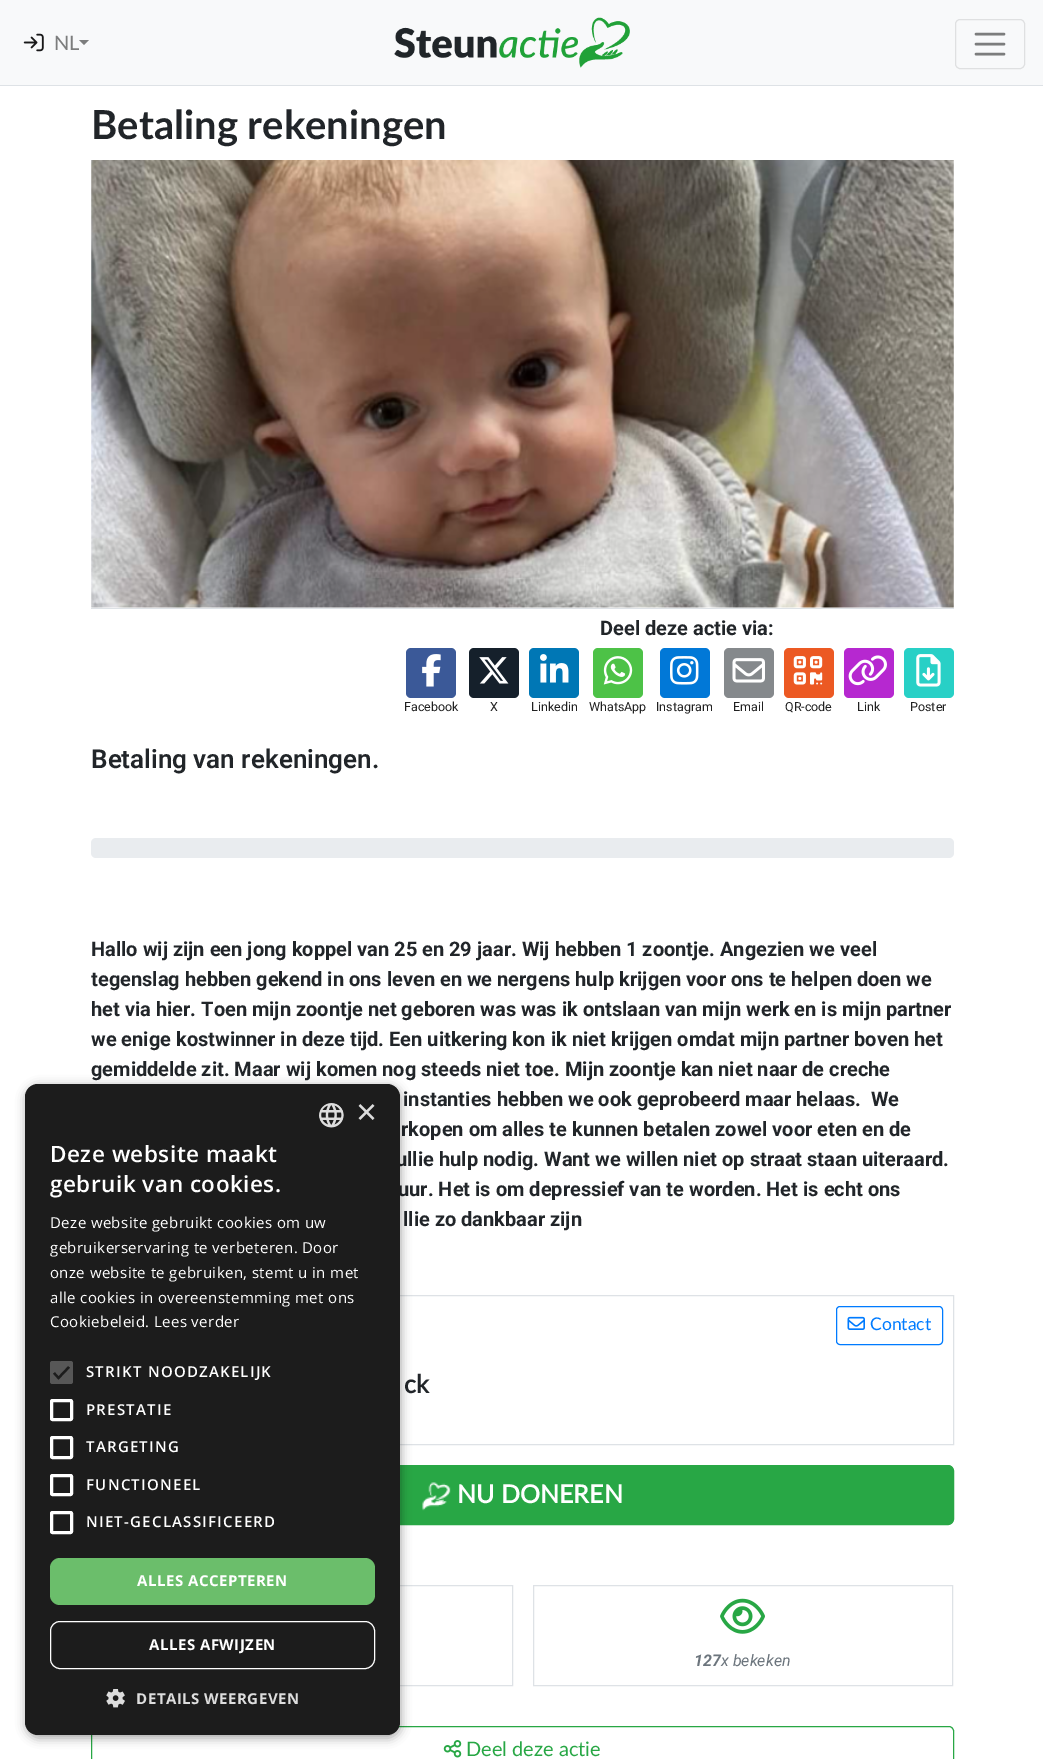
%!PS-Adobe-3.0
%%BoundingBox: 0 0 1043 1759
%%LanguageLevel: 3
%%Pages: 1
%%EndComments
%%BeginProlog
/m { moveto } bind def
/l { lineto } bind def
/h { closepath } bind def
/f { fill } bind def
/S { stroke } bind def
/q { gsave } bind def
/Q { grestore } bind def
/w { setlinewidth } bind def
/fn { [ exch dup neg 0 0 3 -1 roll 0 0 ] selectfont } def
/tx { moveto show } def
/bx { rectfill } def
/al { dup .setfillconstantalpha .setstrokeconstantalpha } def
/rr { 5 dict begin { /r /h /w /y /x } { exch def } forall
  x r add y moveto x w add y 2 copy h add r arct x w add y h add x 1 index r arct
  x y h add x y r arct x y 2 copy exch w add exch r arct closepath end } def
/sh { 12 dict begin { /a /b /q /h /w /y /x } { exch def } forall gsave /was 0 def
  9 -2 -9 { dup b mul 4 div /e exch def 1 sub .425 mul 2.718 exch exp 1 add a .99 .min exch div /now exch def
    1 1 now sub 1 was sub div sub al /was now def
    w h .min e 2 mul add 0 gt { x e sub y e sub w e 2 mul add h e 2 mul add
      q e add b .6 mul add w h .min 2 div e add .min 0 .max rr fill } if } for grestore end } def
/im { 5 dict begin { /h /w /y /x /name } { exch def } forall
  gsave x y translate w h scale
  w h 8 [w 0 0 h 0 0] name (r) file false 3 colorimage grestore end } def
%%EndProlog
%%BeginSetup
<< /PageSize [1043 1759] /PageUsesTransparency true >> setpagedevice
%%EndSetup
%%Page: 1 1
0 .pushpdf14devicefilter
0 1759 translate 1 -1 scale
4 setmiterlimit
1 setgray
0 0 1043 1759 bx
0.973 0.976 0.98 setrgbcolor
0 0 1043 85 bx
0.871 0.886 0.902 setrgbcolor
0 85 1043 1 bx
(image0.raw) 23 33 21 19 im
/Lato-Regular 20 fn
0.486 0.49 0.49 setrgbcolor
(NL) 54 50 tx
79 40 m 89 40 l 84 45 l h f
(image1.raw) 394 17 236 51 im
0.875 0.878 0.882 setrgbcolor
955.5 19.5 69 49 4.5 rr S
0.486 0.49 0.49 setrgbcolor
2.5 w
1 setlinecap
976 34 m 1004 34 l 976 44 m 1004 44 l 976 54 m 1004 54 l S
/Lato-Bold 40 fn
0.129 0.145 0.161 setrgbcolor
(Betaling rekeningen) 91 139 tx
0.871 0.886 0.902 setrgbcolor
91 608 863 1 bx
(image2.raw) 91 160 863 448 im
/Roboto-Bold 20 fn
0.129 0.145 0.161 setrgbcolor
(Deel deze actie via:) 600 635 tx
0.231 0.349 0.596 setrgbcolor
406 648 50 50 5 rr f
(image3.raw) 422 654 19 33 im
/Roboto-Regular 12.5 fn
0.129 setgray
(Facebook) 404 711 tx
0.082 0.125 0.169 setrgbcolor
469 648 50 50 5 rr f
(image4.raw) 479 657 30 27 im
0.129 setgray
(X) 490 711 tx
0 0.467 0.71 setrgbcolor
529 648 50 50 5 rr f
(image5.raw) 540 654 29 29 im
0.129 setgray
(Linkedin) 531 711 tx
0.302 0.761 0.278 setrgbcolor
593 648 50 50 5 rr f
(image6.raw) 603 656 30 29 im
0.129 setgray
(WhatsApp) 589 711 tx
0.004 0.471 0.843 setrgbcolor
660 648 50 50 5 rr f
(image7.raw) 670 656 29 29 im
0.129 setgray
(Instagram) 656 711 tx
0.522 0.537 0.549 setrgbcolor
724 648 50 50 5 rr f
(image8.raw) 732 658 33 25 im
0.129 setgray
(Email) 733 711 tx
0.925 0.349 0.137 setrgbcolor
784 648 50 50 5 rr f
(image9.raw) 793 656 30 29 im
0.129 setgray
(QR-code) 785 711 tx
0.714 0.157 0.816 setrgbcolor
844 648 50 50 5 rr f
(image10.raw) 848 655 39 31 im
0.129 setgray
(Link) 857 711 tx
0.157 0.816 0.776 setrgbcolor
904 648 50 50 5 rr f
(image11.raw) 916 654 25 33 im
0.129 setgray
(Poster) 910 711 tx
/Roboto-SemiBold 26 fn
0.129 0.145 0.161 setrgbcolor
(Betaling van rekeningen.) 91 768 tx
0.914 0.925 0.937 setrgbcolor
91 838 863 20 5 rr f
/Roboto-Bold 20 fn
0.129 0.145 0.161 setrgbcolor
(Hallo wij zijn een jong koppel van 25 en 29 jaar. Wij hebben 1 zoontje. Angezien we veel) 91 956 tx
q
91 915 863 360 rectclip
(tegenslag hebben gekend in ons leven en we nergens hulp krijgen voor ons te helpen doen we) 91 986 tx
Q
(het via hier. Toen mijn zoontje net geboren was was ik ontslaan van mijn werk en is mijn partner) 91 1016 tx
(we enige kostwinner in deze tijd. Een uitkering kon ik niet krijgen omdat mijn partner boven het) 91 1046 tx
(gemiddelde zit. Maar wij komen nog steeds niet toe. Mijn zoontje kan niet naar de creche) 91 1076 tx
(instanties hebben we ook geprobeerd maar helaas.  We) 403 1106 tx
(rkopen om alles te kunnen betalen zowel voor eten en de) 401 1136 tx
(ullie hulp nodig. Want we willen niet op straat staan uiteraard.) 396 1166 tx
(uur. Het is om depressief van te worden. Het is echt ons) 398 1196 tx
(llie zo dankbaar zijn) 403 1226 tx
0.871 0.886 0.902 setrgbcolor
1 w
0 setlinecap
91.5 1295.5 862 149 rectstroke
0 0.482 1 setrgbcolor
836.5 1306.5 106 38 3.5 rr S
(image12.raw) 847 1316 18 14 im
/Lato-Regular 17.5 fn
(Contact) 870 1330 tx
/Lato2-Bold 25 fn
0.129 0.145 0.161 setrgbcolor
(ck) 404 1393 tx
0.157 0.655 0.271 setrgbcolor
91.5 1465.5 862 59 5.5 rr q f Q
S
(image13.raw) 422 1482 29 29 im
1 setgray
(NU DONEREN) 457 1503 tx
0.871 0.886 0.902 setrgbcolor
93.5 1585.5 419 100 rectstroke
533.5 1585.5 419 100 rectstroke
(image14.raw) 720 1598 45 36 im
/Roboto-BoldItalic 16 fn
0.424 0.459 0.49 setrgbcolor
(127) 694 1666 tx
/Roboto-Italic 16 fn
(x bekeken) 721 1666 tx
0.157 0.655 0.271 setrgbcolor
91.5 1726.5 862 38 4.5 rr S
(image15.raw) 443 1740 19 18 im
/Lato-Regular 20 fn
(Deel deze actie) 466 1756 tx
0 setgray
26 1086 375 652 13 5 0.35 sh
0.11 setgray
25 1084 375 651 13 rr f
(image16.raw) 319 1103 25 25 im
/LiberationSans-Regular 36 fn
0.867 setgray
(×) 356 1124 tx
/OpenSans-SemiBold 22.5 fn
1 setgray
50 1162 m 0.5 0 (Deze website maakt) ashow
50 1192 m 0.5 0 (gebruik van cookies.) ashow
/OpenSans-Regular 15 fn
50 1228 m 0.4 0 (Deze website gebruikt cookies om uw) ashow
50 1253 m 0.4 0 (gebruikerservaring te verbeteren. Door) ashow
50 1278 m 0.4 0 (onze website te gebruiken, stemt u in met) ashow
50 1303 m 0.4 0 (alle cookies in overeenstemming met ons) ashow
50 1327 m 0.4 0 (Cookiebeleid. Lees verder) ashow
0.341 setgray
50 1361 23 23 2.5 rr f
0.11 setgray
2.3 w
54 1373 m 58.5 1378 l 69 1367 l S
/OpenSans-SemiBold 15 fn
1 setgray
86 1377 m 1.25 0 (STRIKT NOODZAKELIJK) ashow
3 w
51.5 1400.5 20 19 1 rr S
86 1415 m 1.25 0 (PRESTATIE) ashow
51.5 1437.5 20 20 1 rr S
86 1452 m 1.25 0 (TARGETING) ashow
51.5 1475.5 20 19 1 rr S
86 1490 m 1.25 0 (FUNCTIONEEL) ashow
51.5 1512.5 20 20 1 rr S
86 1527 m 1.25 0 (NIET-GECLASSIFICEERD) ashow
0.42 0.745 0.42 setrgbcolor
50 1558 325 47 10 rr f
/OpenSans-Bold 15 fn
1 setgray
137 1586 m 0.5 0 (ALLES ACCEPTEREN) ashow
1 w
50.5 1621.5 324 47 9.5 rr S
149 1650 m 0.5 0 (ALLES AFWIJZEN) ashow
(image17.raw) 106 1689 19 19 im
0.867 setgray
136 1704 m 0.5 0 (DETAILS WEERGEVEN) ashow
.poppdf14devicefilter showpage
%%EOF
